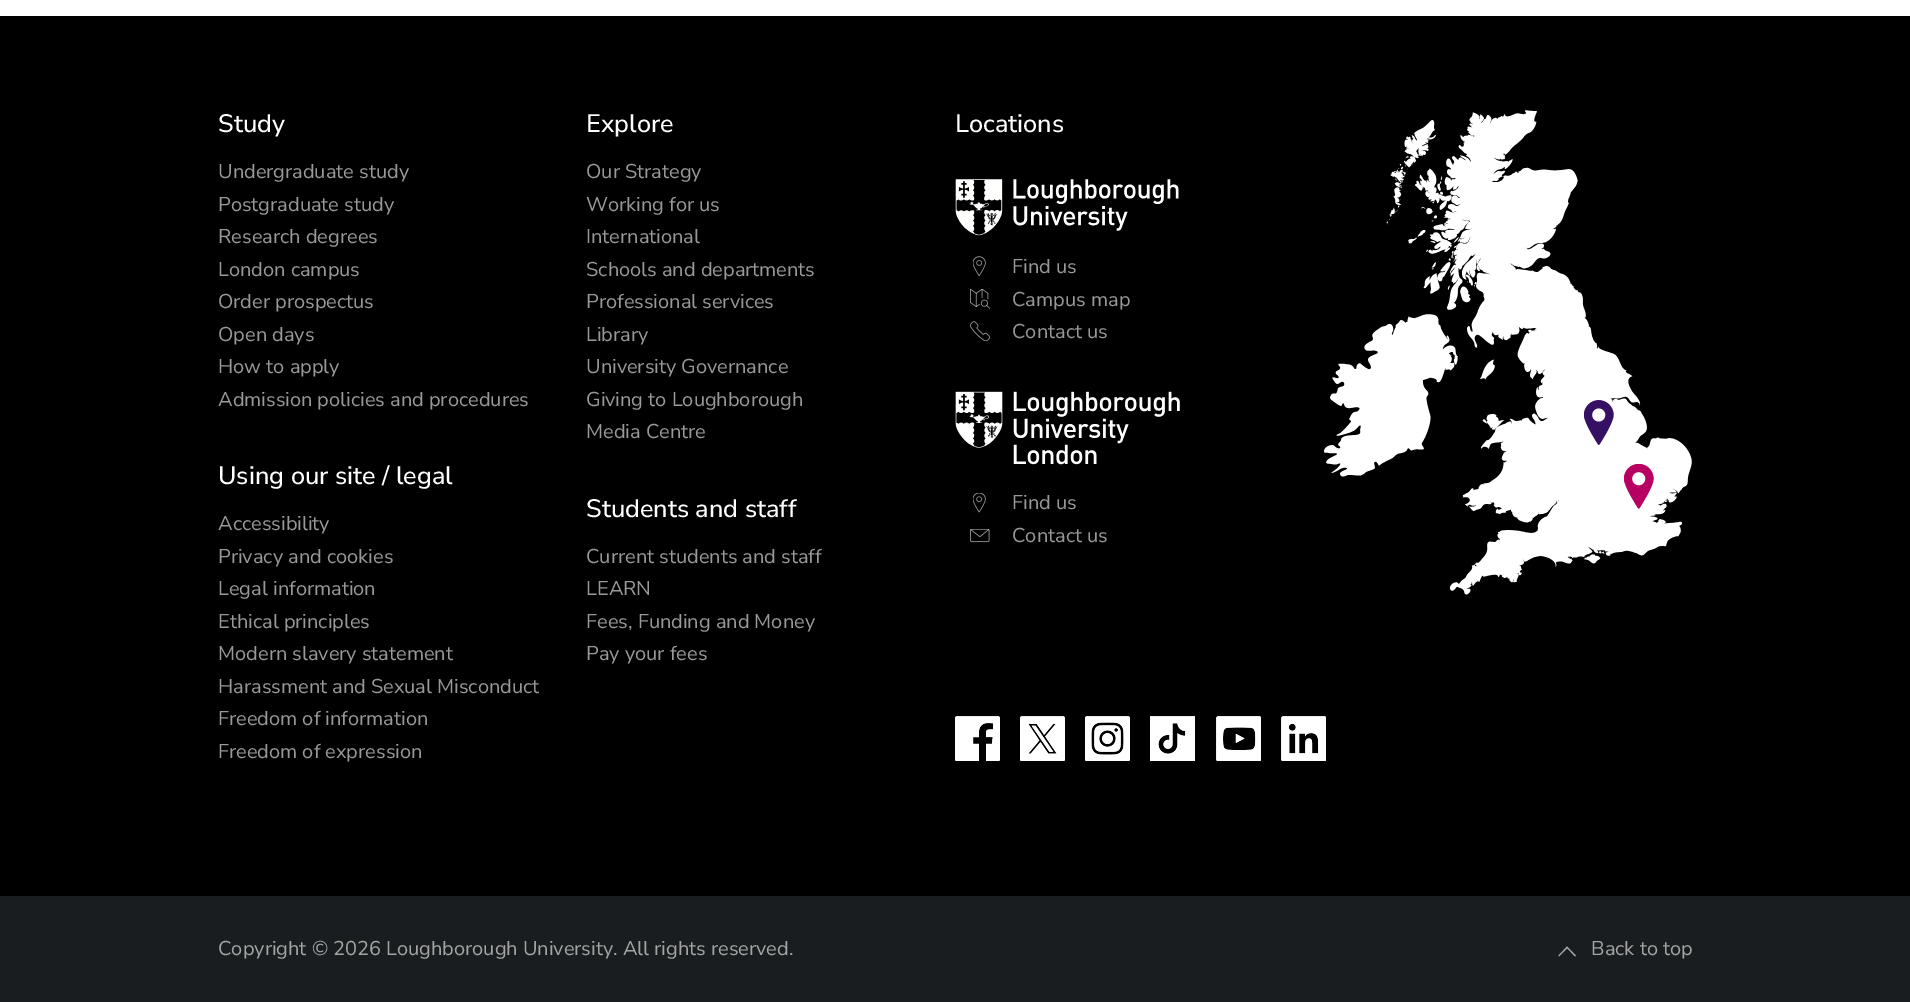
%!PS-Adobe-3.0
%%BoundingBox: 0 0 1910 1002
%%LanguageLevel: 3
%%Pages: 1
%%EndComments
%%BeginProlog
/m { moveto } bind def
/l { lineto } bind def
/h { closepath } bind def
/f { fill } bind def
/fn { [ exch dup neg 0 0 3 -1 roll 0 0 ] selectfont } def
/tx { moveto show } def
/bx { rectfill } def
/im { 5 dict begin { /h /w /y /x /name } { exch def } forall
  gsave x y translate w h scale
  w h 8 [w 0 0 h 0 0] name (r) file false 3 colorimage grestore end } def
%%EndProlog
%%BeginSetup
<< /PageSize [1910 1002] >> setpagedevice
%%EndSetup
%%Page: 1 1
0 1002 translate 1 -1 scale
4 setmiterlimit
1 setgray
0 0 1910 1002 bx
0 setgray
0 16 1910 880 bx
/NunitoSans-Medium 25.25 fn
1 setgray
(Study) 218 132 tx
/NunitoSans-Regular 20 fn
0.6 setgray
(Undergraduate study) 218 178 tx
(Postgraduate study) 218 211 tx
(Research degrees) 218 243 tx
(London campus) 218 276 tx
(Order prospectus) 218 308 tx
(Open days) 218 341 tx
(How to apply) 218 373 tx
(Admission policies and procedures) 218 406 tx
/NunitoSans-Medium 25.25 fn
1 setgray
(Using our site / legal) 218 484 tx
/NunitoSans-Regular 20 fn
0.6 setgray
(Accessibility) 218 530 tx
(Privacy and cookies) 218 563 tx
(Legal information) 218 595 tx
(Ethical principles) 218 628 tx
(Modern slavery statement) 218 660 tx
(Harassment and Sexual Misconduct) 218 693 tx
(Freedom of information) 218 725 tx
(Freedom of expression) 218 758 tx
/NunitoSans-Medium 25.25 fn
1 setgray
(Explore) 586 132 tx
/NunitoSans-Regular 20 fn
0.6 setgray
(Our Strategy) 586 178 tx
(Working for us) 586 211 tx
(International) 586 243 tx
(Schools and departments) 586 276 tx
(Professional services) 586 308 tx
(Library) 586 341 tx
(University Governance) 586 373 tx
(Giving to Loughborough) 586 406 tx
(Media Centre) 586 438 tx
/NunitoSans-Medium 25.25 fn
1 setgray
(Students and staff) 586 517 tx
/NunitoSans-Regular 20 fn
0.6 setgray
(Current students and staff) 586 563 tx
(LEARN) 586 595 tx
(Fees, Funding and Money) 586 628 tx
(Pay your fees) 586 660 tx
/NunitoSans-Medium 25.25 fn
1 setgray
(Locations) 955 132 tx
(image0.raw) 955 179 224 57 im
(image1.raw) 973 256 13 20 im
/NunitoSans-Regular 20 fn
0.6 setgray
(Find us) 1012 273 tx
(image2.raw) 970 289 20 20 im
(Campus map) 1012 306 tx
(image3.raw) 970 321 20 20 im
(Contact us) 1012 338 tx
(image4.raw) 955 391 225 74 im
(image5.raw) 973 493 13 20 im
(Find us) 1012 509 tx
(image6.raw) 970 529 20 14 im
(Contact us) 1012 542 tx
(image7.raw) 955 716 45 45 im
(image8.raw) 955 716 45 45 im
(image9.raw) 1020 716 45 45 im
(image10.raw) 1020 716 45 45 im
(image11.raw) 1085 716 45 45 im
(image12.raw) 1085 716 45 45 im
(image13.raw) 1150 716 45 45 im
(image14.raw) 1150 716 45 38 im
(image15.raw) 1216 716 45 45 im
(image16.raw) 1216 716 45 45 im
(image17.raw) 1281 716 45 45 im
(image18.raw) 1281 716 45 45 im
(image19.raw) 1324 110 368 485 im
(image20.raw) 1584 400 30 45 im
(image21.raw) 1624 464 30 45 im
0.098 0.114 0.122 setrgbcolor
0 896 1910 106 bx
0.639 0.647 0.647 setrgbcolor
(Copyright © 2026 Loughborough University. All rights reserved.) 218 955 tx
1567 946.5 m 1576 955.5 l 1575 956.5 l 1566.5 947.5 l h f
1567 946.5 m 1568 947.5 l 1559 956.5 l 1558.5 955.5 l h f
(Back to top) 1591 955 tx
showpage
%%EOF
